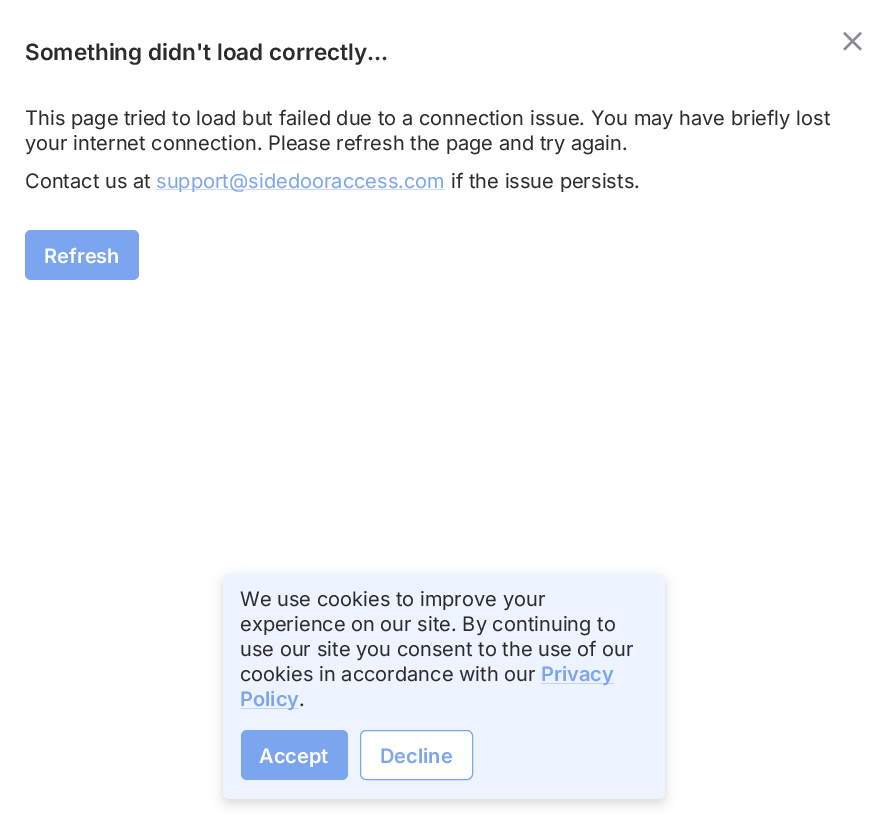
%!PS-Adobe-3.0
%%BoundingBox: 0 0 886 836
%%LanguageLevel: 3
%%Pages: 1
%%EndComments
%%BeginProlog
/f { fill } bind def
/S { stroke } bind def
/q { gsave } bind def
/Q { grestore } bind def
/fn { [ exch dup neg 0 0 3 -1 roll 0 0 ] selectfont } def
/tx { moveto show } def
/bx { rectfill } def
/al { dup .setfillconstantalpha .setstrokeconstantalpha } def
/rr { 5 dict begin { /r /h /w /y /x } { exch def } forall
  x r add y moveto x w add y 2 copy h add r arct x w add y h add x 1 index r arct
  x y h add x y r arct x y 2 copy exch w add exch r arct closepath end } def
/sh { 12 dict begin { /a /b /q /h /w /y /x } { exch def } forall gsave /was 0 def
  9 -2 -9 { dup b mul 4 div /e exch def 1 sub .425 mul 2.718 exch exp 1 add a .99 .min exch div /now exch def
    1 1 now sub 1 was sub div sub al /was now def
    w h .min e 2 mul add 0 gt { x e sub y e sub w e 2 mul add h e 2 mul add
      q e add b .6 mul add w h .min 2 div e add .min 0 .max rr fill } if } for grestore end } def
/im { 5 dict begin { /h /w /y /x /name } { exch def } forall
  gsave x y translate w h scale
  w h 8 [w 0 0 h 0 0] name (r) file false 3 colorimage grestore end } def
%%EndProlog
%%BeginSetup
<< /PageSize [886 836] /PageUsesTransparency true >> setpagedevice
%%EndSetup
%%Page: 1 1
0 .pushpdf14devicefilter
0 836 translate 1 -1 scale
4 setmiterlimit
1 setgray
0 0 886 836 bx
/Inter-SemiBold 22.5 fn
0.169 0.165 0.173 setrgbcolor
(Something didn't load correctly...) 25 60 tx
(image0.raw) 843 31 19 20 im
/Inter-Regular 20 fn
(This page tried to load but failed due to a connection issue. You may have briefly lost) 25 125 tx
(your internet connection. Please refresh the page and try again.) 25 150 tx
(Contact us at) 25 188 tx
0.792 0.859 0.976 setrgbcolor
156 189 289 1 bx
0.482 0.647 0.937 setrgbcolor
(support@sidedooraccess.com) 156 188 tx
0.169 0.165 0.173 setrgbcolor
(if the issue persists.) 451 188 tx
0.482 0.647 0.937 setrgbcolor
25 230 114 50 6 rr f
/Inter-SemiBold 20 fn
1 setgray
(Refresh) 44 263 tx
0.4 0.392 0.408 setrgbcolor
223 578 442 225 6 6 0.25 sh
0.933 0.957 1 setrgbcolor
223 574 442 225 6 rr f
/Inter-Regular 20 fn
0.169 0.165 0.173 setrgbcolor
(We use cookies to improve your) 240 606 tx
(experience on our site. By continuing to) 240 631 tx
(use our site you consent to the use of our) 240 656 tx
(cookies in accordance with our) 240 681 tx
0.753 0.831 0.976 setrgbcolor
541 683 73 1 bx
/Inter-SemiBold 20 fn
0.482 0.647 0.937 setrgbcolor
(Privacy) 541 681 tx
0.753 0.831 0.976 setrgbcolor
241 708 58 1 bx
0.482 0.647 0.937 setrgbcolor
(Policy) 240 706 tx
/Inter-Regular 20 fn
0.169 0.165 0.173 setrgbcolor
(.) 299 706 tx
0.482 0.647 0.937 setrgbcolor
241 730 107 50 6 rr f
/Inter-SemiBold 20 fn
1 setgray
(Accept) 259 763 tx
360.5 730.5 112 49 5.5 rr q f Q
0.482 0.647 0.937 setrgbcolor
S
(Decline) 380 763 tx
.poppdf14devicefilter showpage
%%EOF
